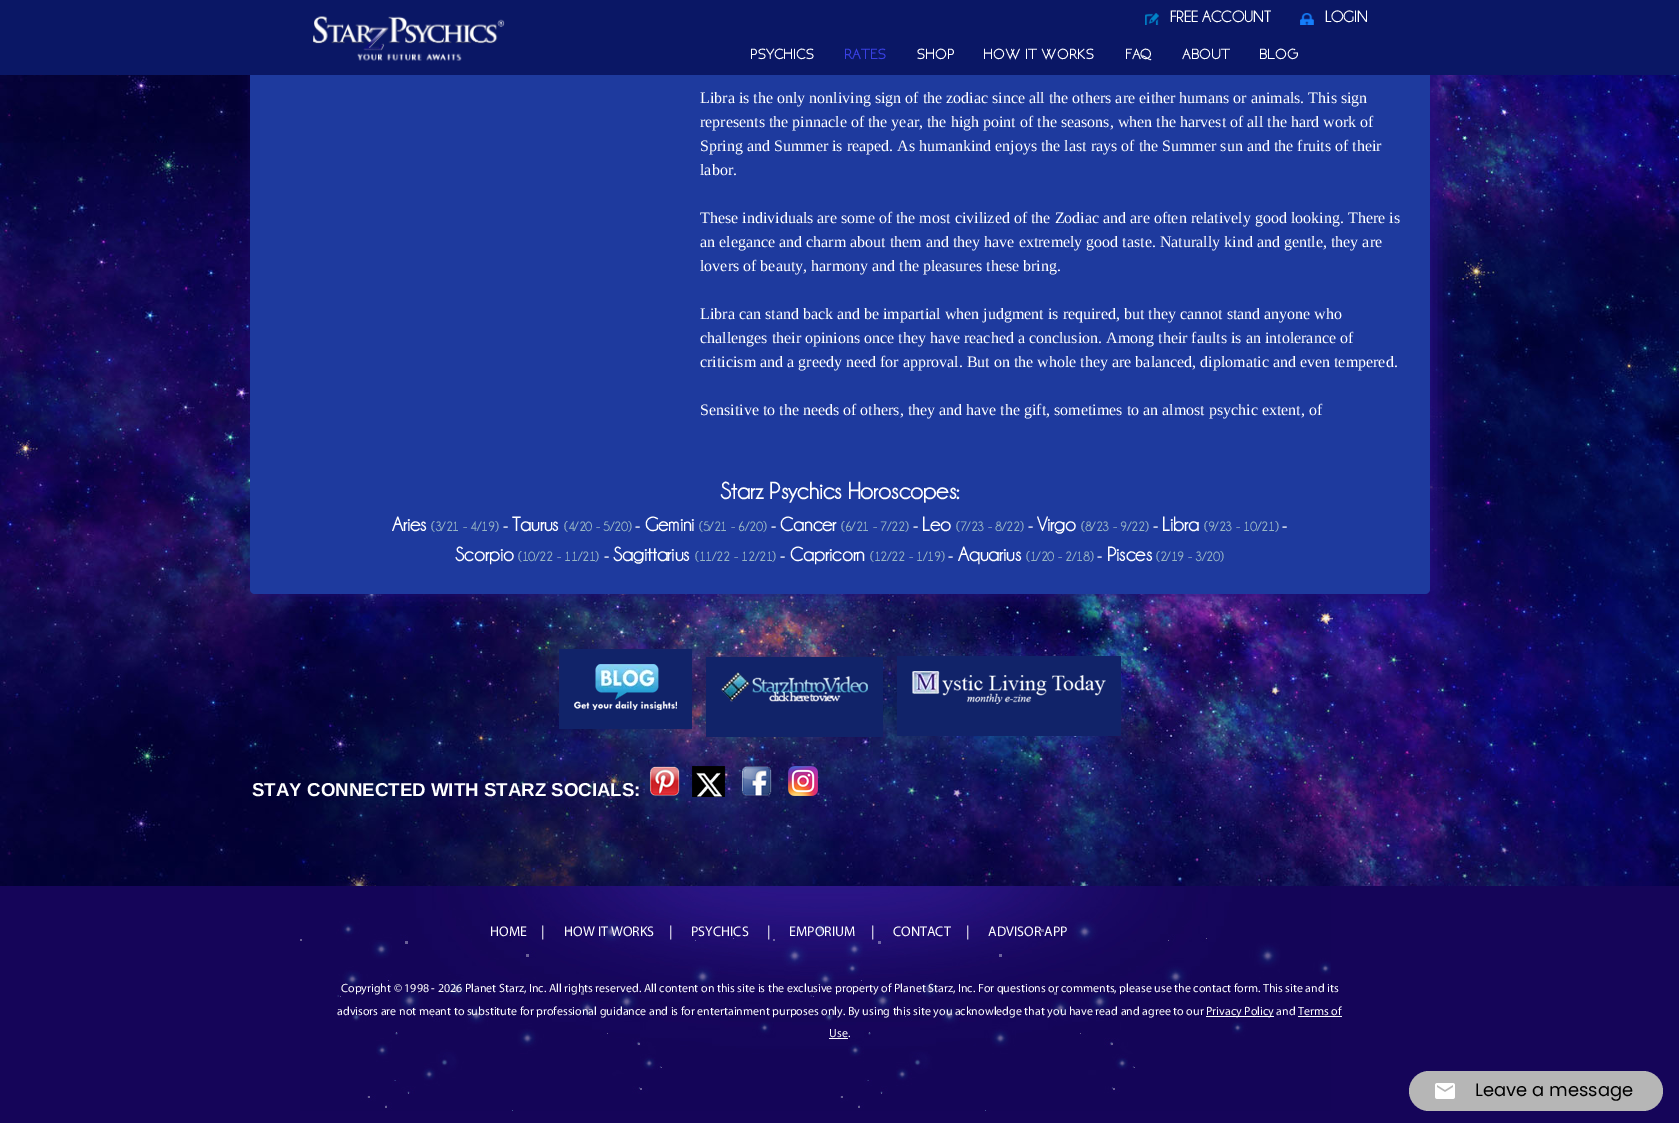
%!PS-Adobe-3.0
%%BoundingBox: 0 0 1679 1123
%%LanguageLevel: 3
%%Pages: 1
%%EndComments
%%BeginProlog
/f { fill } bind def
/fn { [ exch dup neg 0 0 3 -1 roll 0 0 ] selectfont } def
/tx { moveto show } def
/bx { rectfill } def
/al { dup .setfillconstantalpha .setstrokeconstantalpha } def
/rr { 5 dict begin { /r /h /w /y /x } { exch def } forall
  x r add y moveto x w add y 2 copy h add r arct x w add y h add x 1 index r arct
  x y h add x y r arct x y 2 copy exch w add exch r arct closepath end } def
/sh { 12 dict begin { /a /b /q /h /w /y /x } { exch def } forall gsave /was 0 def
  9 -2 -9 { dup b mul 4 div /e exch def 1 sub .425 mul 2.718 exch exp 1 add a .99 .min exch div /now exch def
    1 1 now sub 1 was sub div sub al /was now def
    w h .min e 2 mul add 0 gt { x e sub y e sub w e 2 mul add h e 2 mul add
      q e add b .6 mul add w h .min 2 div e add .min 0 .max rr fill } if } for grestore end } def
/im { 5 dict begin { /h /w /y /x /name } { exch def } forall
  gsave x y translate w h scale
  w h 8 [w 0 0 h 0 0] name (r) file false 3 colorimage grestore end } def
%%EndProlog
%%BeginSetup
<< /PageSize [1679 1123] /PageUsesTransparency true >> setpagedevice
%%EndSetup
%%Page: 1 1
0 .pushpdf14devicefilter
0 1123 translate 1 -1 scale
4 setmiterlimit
1 setgray
0 0 1679 1123 bx
(image0.raw) 0 75 1679 811 im
0.133 0.051 0.482 setrgbcolor
260 -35 1180 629 5 10 1 sh
0.118 0.227 0.62 setrgbcolor
250 -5 1180 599 5 rr f
0.039 0.09 0.396 setrgbcolor
0 0 1679 75 bx
(image1.raw) 313 16 192 45 im
(image2.raw) 1145 13 14 12 im
/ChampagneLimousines-Bold 16 fn
1 setgray
(FREE ACCOUNT) 1170 22 tx
(image3.raw) 1300 13 14 12 im
(LOGIN) 1325 22 tx
/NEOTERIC-Bold 15 fn
(PSYCHICS) 750 59 tx
0.224 0.251 0.898 setrgbcolor
(RATES) 844 59 tx
1 setgray
(SHOP) 916 59 tx
(HOW IT WORKS) 983 59 tx
(FAQ) 1125 59 tx
(ABOUT) 1182 59 tx
(BLOG) 1259 59 tx
/LiberationSerif-Regular 16 fn
(Libra is the only nonliving sign of the zodiac since all the others are either humans or animals. This sign) 700 103 tx
(represents the pinnacle of the year, the high point of the seasons, when the harvest of all the hard work of) 700 127 tx
(Spring and Summer is reaped. As humankind enjoys the last rays of the Summer sun and the fruits of their) 700 151 tx
(labor.) 700 175 tx
(These individuals are some of the most civilized of the Zodiac and are often relatively good looking. There is) 700 223 tx
(an elegance and charm about them and they have extremely good taste. Naturally kind and gentle, they are) 700 247 tx
(lovers of beauty, harmony and the pleasures these bring.) 700 271 tx
(Libra can stand back and be impartial when judgment is required, but they cannot stand anyone who) 700 319 tx
(challenges their opinions once they have reached a conclusion. Among their faults is an intolerance of) 700 343 tx
(criticism and a greedy need for approval. But on the whole they are balanced, diplomatic and even tempered.) 700 367 tx
(Sensitive to the needs of others, they and have the gift, sometimes to an almost psychic extent, of) 700 415 tx
/ChampagneLimousines-Bold 24 fn
(Starz Psychics Horoscopes:) 720 499 tx
/ChampagneLimousines-Bold 20 fn
(Aries) 392 531 tx
/ChampagneLimousines-Bold 13.25 fn
0.592 0.71 0.773 setrgbcolor
(\(3/21 - 4/19\)) 431 531 tx
/LiberationSerif-Regular 16 fn
1 setgray
(-) 503 531 tx
/ChampagneLimousines-Bold 20 fn
(Taurus) 512 531 tx
/ChampagneLimousines-Bold 13.25 fn
0.592 0.71 0.773 setrgbcolor
(\(4/20 - 5/20\)) 564 531 tx
/LiberationSerif-Regular 16 fn
1 setgray
(-) 635 531 tx
/ChampagneLimousines-Bold 20 fn
(Gemini) 645 531 tx
/ChampagneLimousines-Bold 13.25 fn
0.592 0.71 0.773 setrgbcolor
(\(5/21 - 6/20\)) 699 531 tx
/LiberationSerif-Regular 16 fn
1 setgray
(-) 771 531 tx
/ChampagneLimousines-Bold 20 fn
(Cancer) 780 531 tx
/ChampagneLimousines-Bold 13.25 fn
0.592 0.71 0.773 setrgbcolor
(\(6/21 - 7/22\)) 841 531 tx
/LiberationSerif-Regular 16 fn
1 setgray
(-) 913 531 tx
/ChampagneLimousines-Bold 20 fn
(Leo) 922 531 tx
/ChampagneLimousines-Bold 13.25 fn
0.592 0.71 0.773 setrgbcolor
(\(7/23 - 8/22\)) 956 531 tx
/LiberationSerif-Regular 16 fn
1 setgray
(-) 1028 531 tx
/ChampagneLimousines-Bold 20 fn
(Virgo) 1037 531 tx
/ChampagneLimousines-Bold 13.25 fn
0.592 0.71 0.773 setrgbcolor
(\(8/23 - 9/22\)) 1081 531 tx
/LiberationSerif-Regular 16 fn
1 setgray
(-) 1153 531 tx
/ChampagneLimousines-Bold 20 fn
(Libra) 1162 531 tx
/ChampagneLimousines-Bold 13.25 fn
0.592 0.71 0.773 setrgbcolor
(\(9/23 - 10/21\)) 1204 531 tx
/LiberationSerif-Regular 16 fn
1 setgray
(-) 1282 531 tx
/ChampagneLimousines-Bold 20 fn
(Scorpio) 455 561 tx
/ChampagneLimousines-Bold 13.25 fn
0.592 0.71 0.773 setrgbcolor
(\(10/22 - 11/21\)) 518 561 tx
/LiberationSerif-Regular 16 fn
1 setgray
(-) 604 561 tx
/ChampagneLimousines-Bold 20 fn
(Sagittarius) 613 561 tx
/ChampagneLimousines-Bold 13.25 fn
0.592 0.71 0.773 setrgbcolor
(\(11/22 - 12/21\)) 695 561 tx
/LiberationSerif-Regular 16 fn
1 setgray
(-) 780 561 tx
/ChampagneLimousines-Bold 20 fn
(Capricorn) 790 561 tx
/ChampagneLimousines-Bold 13.25 fn
0.592 0.71 0.773 setrgbcolor
(\(12/22 - 1/19\)) 870 561 tx
/LiberationSerif-Regular 16 fn
1 setgray
(-) 948 561 tx
/ChampagneLimousines-Bold 20 fn
(Aquarius) 958 561 tx
/ChampagneLimousines-Bold 13.25 fn
0.592 0.71 0.773 setrgbcolor
(\(1/20 - 2/18\)) 1026 561 tx
/LiberationSerif-Regular 16 fn
1 setgray
(-) 1097 561 tx
/ChampagneLimousines-Bold 20 fn
(Pisces) 1107 561 tx
/ChampagneLimousines-Bold 13.25 fn
0.592 0.71 0.773 setrgbcolor
(\(2/19 - 3/20\)) 1156 561 tx
0.067 0.137 0.412 setrgbcolor
559 649 133 80 bx
(image4.raw) 574 664 103 46 im
706 657 177 80 bx
(image5.raw) 721 672 147 30 im
897 656 224 80 bx
(image6.raw) 912 671 194 33 im
/LiberationSans-Bold 18.7 fn
1 setgray
(STAY CONNECTED WITH STARZ SOCIALS:) 252 796 tx
(image7.raw) 649 766 31 30 im
(image8.raw) 692 766 33 31 im
(image9.raw) 742 766 30 30 im
(image10.raw) 788 766 30 30 im
0.082 0.02 0.349 setrgbcolor
0 886 1679 237 bx
(image11.raw) 300 886 1031 225 im
/Myriad-Regular 14 fn
1 setgray
(HOME) 490 936 tx
(|) 541 936 tx
(HOW IT WORKS) 564 936 tx
(|) 669 936 tx
(PSYCHICS) 691 936 tx
(|) 767 936 tx
(EMPORIUM) 789 936 tx
(|) 871 936 tx
(CONTACT) 893 936 tx
(|) 966 936 tx
(ADVISOR APP) 988 936 tx
/Myriad-Regular 12 fn
(Copyright © 1998 - 2026 Planet Starz, Inc. All rights reserved. All content on this site is the exclusive property of Planet Starz, Inc. For questions or comments, please use the contact form. This site and its) 341 992 tx
(advisors are not meant to substitute for professional guidance and is for entertainment purposes only. By using this site you acknowledge that you have read and agree to our) 337 1015 tx
1206 1016 68 1 bx
(Privacy Policy and Terms of) 1206 1015 tx
1298 1016 44 1 bx
(Use.) 829 1037 tx
829 1038 19 1 bx
0.714 setgray
1409 1071 254 40 20 rr f
(image12.raw) 1435 1083 20 16 im
/Poppins-Regular 18 fn
0 setgray
(Leave a message) 1475 1096 tx
.poppdf14devicefilter showpage
%%EOF
